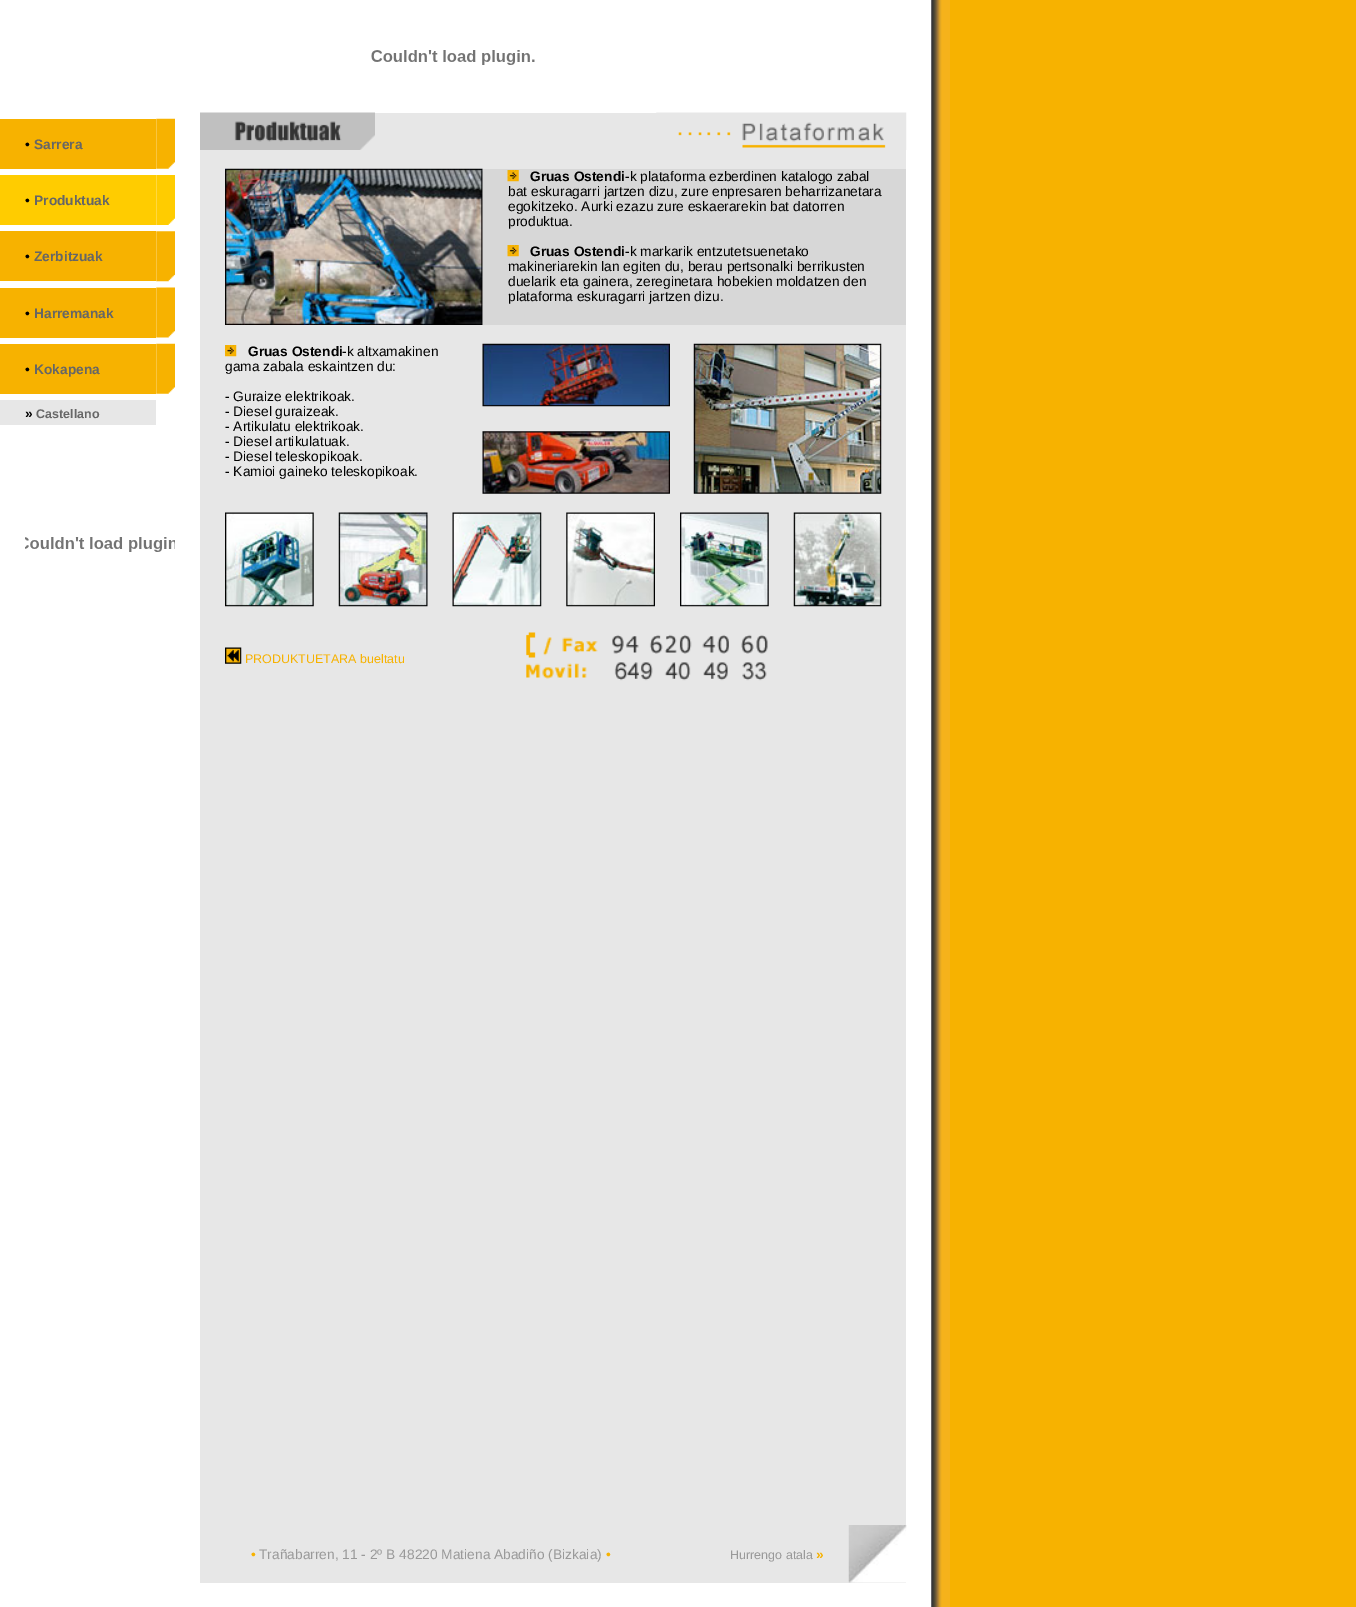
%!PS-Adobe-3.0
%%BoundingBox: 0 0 1356 1607
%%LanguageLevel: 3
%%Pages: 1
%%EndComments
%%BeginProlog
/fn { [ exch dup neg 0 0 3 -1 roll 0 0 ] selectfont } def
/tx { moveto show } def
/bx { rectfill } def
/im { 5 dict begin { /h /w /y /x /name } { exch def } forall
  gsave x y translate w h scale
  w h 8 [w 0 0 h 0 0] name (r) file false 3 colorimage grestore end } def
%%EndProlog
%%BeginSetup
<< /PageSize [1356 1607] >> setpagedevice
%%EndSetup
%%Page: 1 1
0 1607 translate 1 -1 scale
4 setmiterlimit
0.969 0.698 0 setrgbcolor
0 0 1356 1607 bx
1 setgray
0 0 931 1607 bx
(image0.raw) 371 50 164 15 im
0.969 0.698 0 setrgbcolor
0 119 156 50 bx
/LiberationSans-Regular 13.75 fn
0 setgray
(•) 25 149 tx
/LiberationSans-Bold 13.75 fn
0.4 setgray
(Sarrera) 34 149 tx
(image1.raw) 156 118 19 51 im
1 0.8 0 setrgbcolor
0 175 156 50 bx
/LiberationSans-Regular 13.75 fn
0 setgray
(•) 25 205 tx
/LiberationSans-Bold 13.75 fn
0.4 setgray
(Produktuak) 34 205 tx
(image2.raw) 156 175 19 50 im
0.969 0.698 0 setrgbcolor
0 231 156 50 bx
/LiberationSans-Regular 13.75 fn
0 setgray
(•) 25 261 tx
/LiberationSans-Bold 13.75 fn
0.4 setgray
(Zerbitzuak) 34 261 tx
(image3.raw) 156 231 19 51 im
0.969 0.698 0 setrgbcolor
0 288 156 50 bx
/LiberationSans-Regular 13.75 fn
0 setgray
(•) 25 318 tx
/LiberationSans-Bold 13.75 fn
0.4 setgray
(Harremanak) 34 318 tx
(image4.raw) 156 287 19 51 im
0.969 0.698 0 setrgbcolor
0 344 156 50 bx
/LiberationSans-Regular 13.75 fn
0 setgray
(•) 25 374 tx
/LiberationSans-Bold 13.75 fn
0.4 setgray
(Kokapena) 34 374 tx
(image1.raw) 156 343 19 51 im
0.906 setgray
0 400 156 25 bx
0 setgray
(») 25 418 tx
/LiberationSans-Bold 12.5 fn
0.4 setgray
(Castellano) 36 418 tx
(image5.raw) 25 537 150 15 im
0.906 setgray
200 113 706 1470 bx
(image6.raw) 200 112 175 38 im
(image7.raw) 656 112 251 38 im
(image8.raw) 225 168 258 157 im
0.843 setgray
483 169 423 156 bx
(image9.raw) 507 170 12 12 im
/LiberationSans-Bold 13.75 fn
0 setgray
(Gruas Ostendi) 530 181 tx
/LiberationSans-Regular 13.75 fn
(-k plataforma ezberdinen katalogo zabal) 625 181 tx
(bat eskuragarri jartzen dizu, zure enpresaren beharrizanetara) 508 196 tx
(egokitzeko. Aurki ezazu zure eskaerarekin bat datorren) 508 211 tx
(produktua.) 508 226 tx
(image9.raw) 507 245 12 12 im
/LiberationSans-Bold 13.75 fn
(Gruas Ostendi) 530 256 tx
/LiberationSans-Regular 13.75 fn
(-k markarik entzutetsuenetako) 625 256 tx
(makineriarekin lan egiten du, berau pertsonalki berrikusten) 508 271 tx
(duelarik eta gainera, zereginetara hobekien moldatzen den) 508 286 tx
(plataforma eskuragarri jartzen dizu.) 508 301 tx
(image10.raw) 225 345 12 12 im
/LiberationSans-Bold 13.75 fn
(Gruas Ostendi) 248 356 tx
/LiberationSans-Regular 13.75 fn
(-k altxamakinen) 342 356 tx
(gama zabala eskaintzen du:) 225 371 tx
(- Guraize elektrikoak.) 225 401 tx
(- Diesel guraizeak.) 225 416 tx
(- Artikulatu elektrikoak.) 225 431 tx
(- Diesel artikulatuak.) 225 446 tx
(- Diesel teleskopikoak.) 225 461 tx
(- Kamioi gaineko teleskopikoak.) 225 476 tx
(image11.raw) 482 343 188 64 im
(image12.raw) 693 343 189 151 im
(image13.raw) 482 431 188 63 im
(image14.raw) 225 512 89 95 im
(image15.raw) 338 512 90 95 im
(image16.raw) 452 512 90 95 im
(image17.raw) 566 512 89 95 im
(image18.raw) 680 512 89 95 im
(image19.raw) 793 512 89 95 im
(image20.raw) 225 647 17 17 im
/LiberationSans-Regular 12.5 fn
0.969 0.698 0 setrgbcolor
(PRODUKTUETARA bueltatu) 245 663 tx
(image21.raw) 526 632 242 49 im
/LiberationSans-Regular 13.75 fn
(•) 251 1559 tx
0.6 setgray
(Trañabarren, 11 - 2º B 48220 Matiena Abadiño \(Bizkaia\)) 259 1559 tx
0.969 0.698 0 setrgbcolor
(•) 606 1559 tx
/LiberationSans-Regular 12.5 fn
0.6 setgray
(Hurrengo atala) 730 1559 tx
/LiberationSans-Bold 13.75 fn
0.969 0.698 0 setrgbcolor
(») 816 1559 tx
(image22.raw) 848 1525 59 58 im
(image23.raw) 931 0 19 1607 im
showpage
%%EOF
